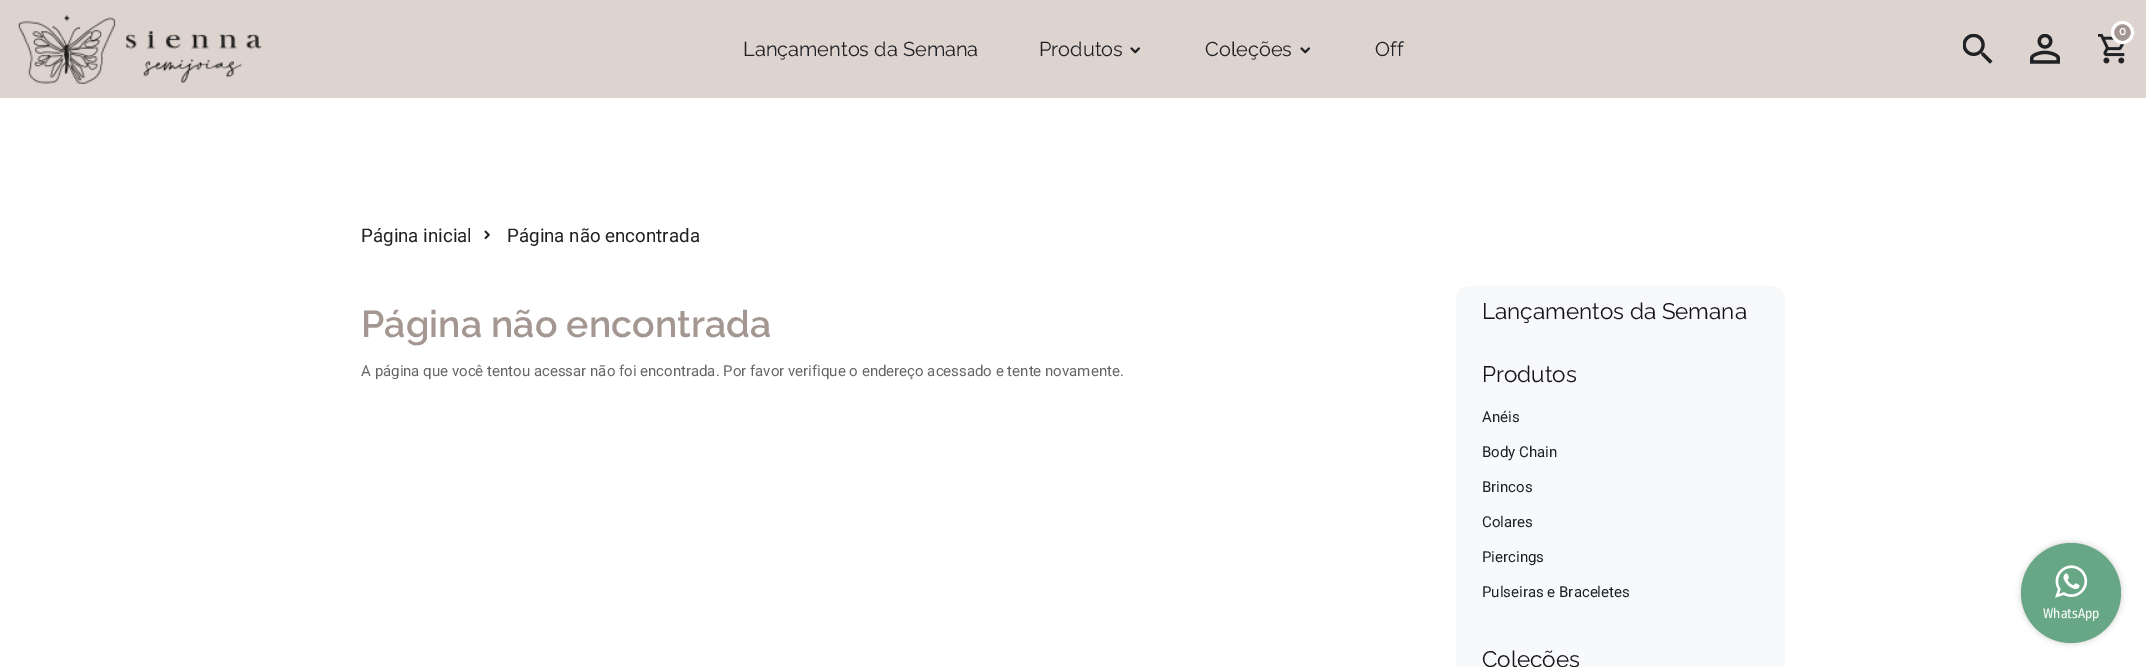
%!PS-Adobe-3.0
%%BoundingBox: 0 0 2146 667
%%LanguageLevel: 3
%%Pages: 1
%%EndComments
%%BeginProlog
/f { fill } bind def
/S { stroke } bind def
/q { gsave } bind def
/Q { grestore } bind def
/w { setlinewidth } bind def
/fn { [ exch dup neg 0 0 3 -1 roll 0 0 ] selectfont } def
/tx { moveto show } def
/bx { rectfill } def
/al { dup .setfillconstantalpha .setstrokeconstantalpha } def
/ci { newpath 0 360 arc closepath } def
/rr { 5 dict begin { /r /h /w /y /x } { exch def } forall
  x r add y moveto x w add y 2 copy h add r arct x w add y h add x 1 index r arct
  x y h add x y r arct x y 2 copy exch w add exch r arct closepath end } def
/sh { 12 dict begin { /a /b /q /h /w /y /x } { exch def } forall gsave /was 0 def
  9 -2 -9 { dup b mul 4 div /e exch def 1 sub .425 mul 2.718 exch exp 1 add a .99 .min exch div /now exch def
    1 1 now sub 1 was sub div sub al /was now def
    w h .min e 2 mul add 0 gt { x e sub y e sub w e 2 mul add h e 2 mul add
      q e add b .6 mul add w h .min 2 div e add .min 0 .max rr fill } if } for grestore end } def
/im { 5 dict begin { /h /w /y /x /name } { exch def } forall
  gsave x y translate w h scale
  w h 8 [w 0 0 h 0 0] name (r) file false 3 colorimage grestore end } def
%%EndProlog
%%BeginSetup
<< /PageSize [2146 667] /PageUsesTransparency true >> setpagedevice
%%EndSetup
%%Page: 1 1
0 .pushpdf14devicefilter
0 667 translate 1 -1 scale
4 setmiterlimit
1 setgray
0 0 2146 667 bx
0.867 0.827 0.812 setrgbcolor
0 0 2146 98 bx
(image0.raw) 18 15 244 69 im
(image1.raw) 2098 34 27 30 im
0.643 0.592 0.569 setrgbcolor
2122.5 32.5 10 ci q f Q
1 setgray
3 w
S
/Raleway-SemiBold 12 fn
(0) 2119 35 tx
(image2.raw) 1963 34 30 30 im
(image3.raw) 2030 34 30 30 im
/Raleway-Regular 20 fn
0.125 0.129 0.141 setrgbcolor
(Lançamentos da Semana) 743 56 tx
(Produtos) 1039 56 tx
(image4.raw) 1130 47 11 7 im
(Coleções) 1205 56 tx
(image4.raw) 1300 47 11 7 im
(Off) 1375 56 tx
/Roboto-Regular 18.75 fn
(Página inicial) 361 242 tx
(image5.raw) 484 230 6 10 im
(Página não encontrada) 507 242 tx
/Raleway-SemiBold 37.5 fn
0.643 0.592 0.569 setrgbcolor
(Página não encontrada) 361 337 tx
/Roboto-Regular 15 fn
0.4 setgray
(A página que você tentou acessar não foi encontrada. Por favor verifique o endereço acessado e tente novamente.) 361 376 tx
0.973 0.976 0.98 setrgbcolor
1456 286 329 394 13 rr f
/Raleway-Regular 22.5 fn
0.094 0.075 0.114 setrgbcolor
(Lançamentos da Semana) 1482 319 tx
(Produtos) 1482 382 tx
/Roboto-Regular 15 fn
0.125 0.129 0.141 setrgbcolor
(Anéis) 1482 422 tx
(Body Chain) 1482 457 tx
(Brincos) 1482 492 tx
(Colares) 1482 527 tx
(Piercings) 1482 562 tx
(Pulseiras e Braceletes) 1482 597 tx
/Raleway-Regular 22.5 fn
0.094 0.075 0.114 setrgbcolor
(Coleções) 1482 667 tx
0 setgray
2021 543 100 100 50 3 0.2 sh
0.408 0.655 0.522 setrgbcolor
2071 593 50 ci f
(image6.raw) 2055 565 33 33 im
/FiraSansCondensed-Regular 13.75 fn
1 setgray
(WhatsApp) 2043 618 tx
.poppdf14devicefilter showpage
%%EOF
